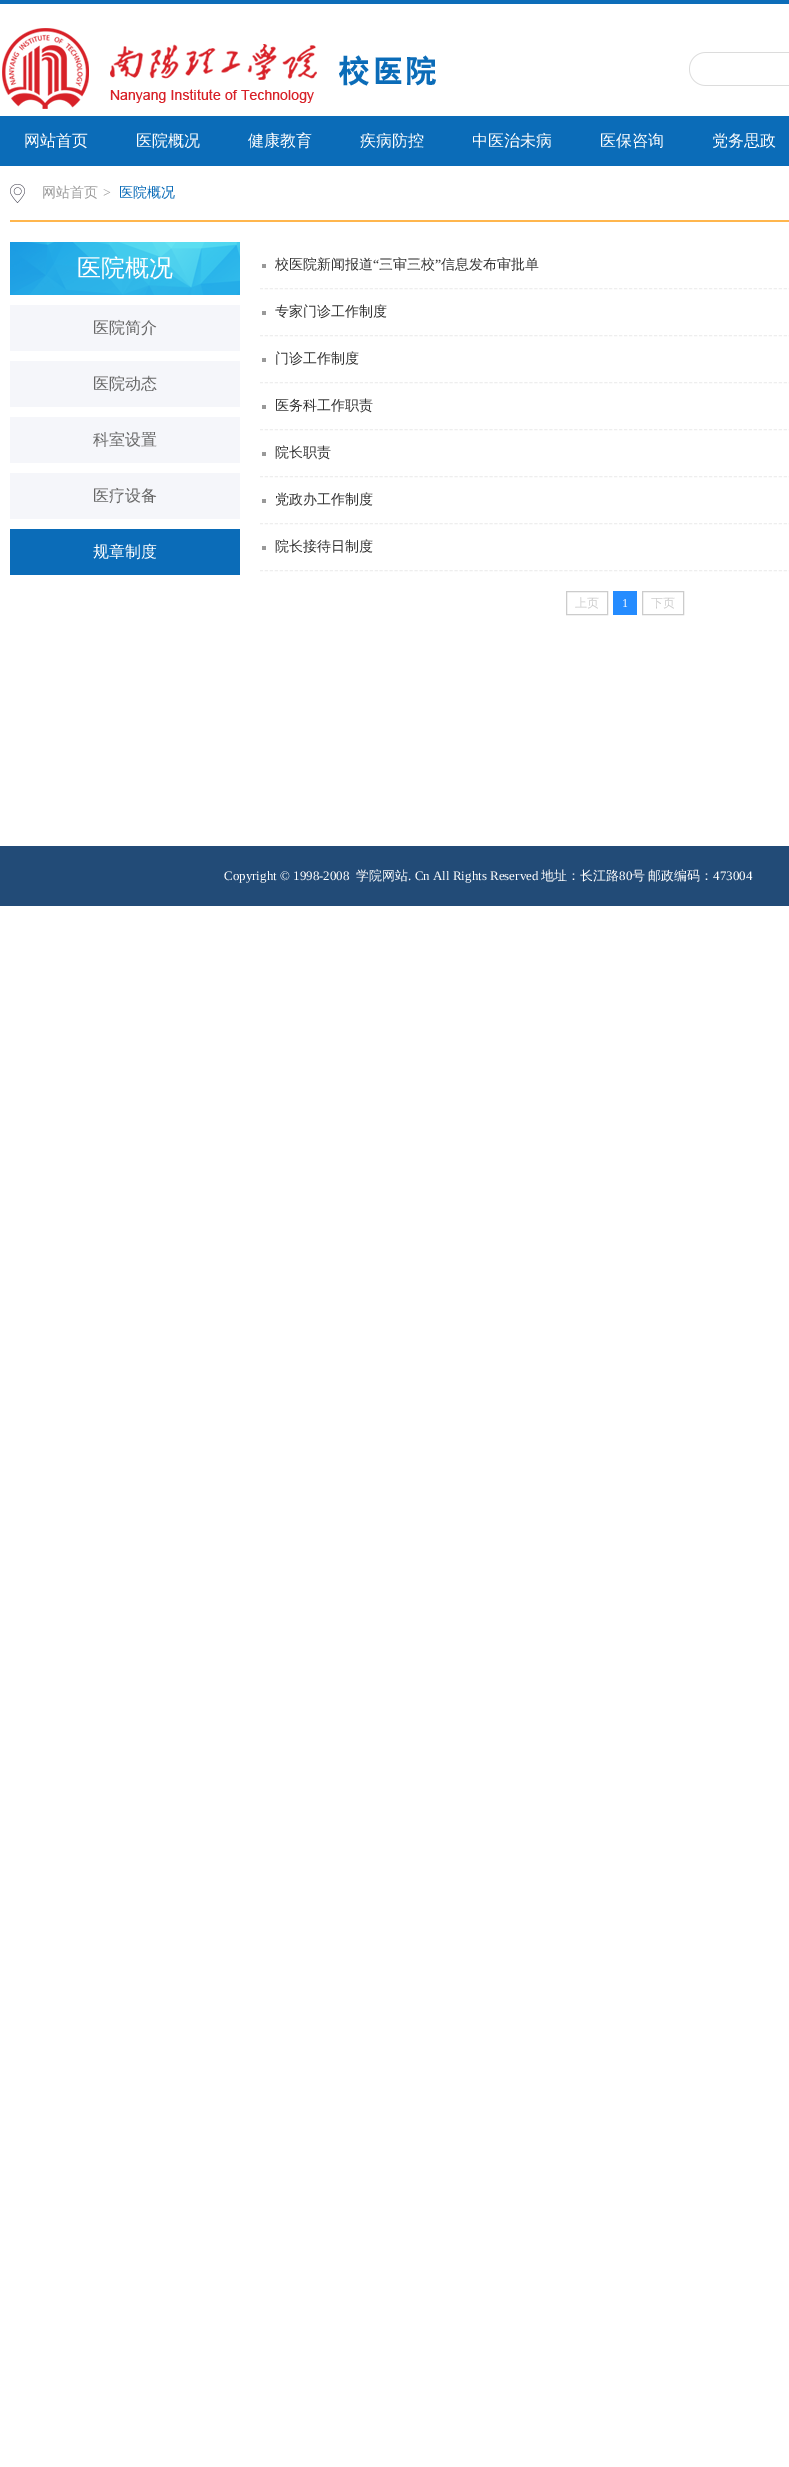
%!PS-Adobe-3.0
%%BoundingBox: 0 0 789 2467
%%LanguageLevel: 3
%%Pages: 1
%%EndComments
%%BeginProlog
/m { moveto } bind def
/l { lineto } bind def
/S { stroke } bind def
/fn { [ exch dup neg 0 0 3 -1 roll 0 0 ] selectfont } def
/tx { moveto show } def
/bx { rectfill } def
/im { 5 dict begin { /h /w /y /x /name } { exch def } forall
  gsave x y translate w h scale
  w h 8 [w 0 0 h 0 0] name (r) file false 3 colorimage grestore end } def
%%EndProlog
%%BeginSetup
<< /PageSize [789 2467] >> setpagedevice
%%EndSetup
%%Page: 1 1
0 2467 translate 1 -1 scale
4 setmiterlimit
1 setgray
0 0 789 2467 bx
0.051 0.427 0.725 setrgbcolor
0 0 789 4 bx
(image0.raw) 2 28 434 81 im
(image1.raw) 689 52 100 34 im
0.043 0.424 0.722 setrgbcolor
0 116 789 50 bx
/WenQuanYiZenHei-Medium 16 fn
1 setgray
(网站首页) 24 146 tx
(医院概况) 136 146 tx
(健康教育) 248 146 tx
(疾病防控) 360 146 tx
(中医治未病) 472 146 tx
(医保咨询) 600 146 tx
(党务思政) 712 146 tx
1 0.714 0.302 setrgbcolor
10 220 779 2 bx
(image2.raw) 10 184 15 19 im
/WenQuanYiZenHei-Medium 14 fn
0.6 setgray
(网站首页) 42 197 tx
/LiberationSerif-Regular 14 fn
(>) 103 197 tx
/WenQuanYiZenHei-Medium 14 fn
0.043 0.424 0.722 setrgbcolor
(医院概况) 119 197 tx
(image3.raw) 10 242 230 53 im
/WenQuanYiZenHei-Medium 24 fn
1 setgray
(医院概况) 77 276 tx
0.961 0.965 0.98 setrgbcolor
10 305 230 46 bx
/WenQuanYiZenHei-Medium 16 fn
0.4 setgray
(医院简介) 93 333 tx
0.961 0.965 0.98 setrgbcolor
10 361 230 46 bx
0.4 setgray
(医院动态) 93 389 tx
0.961 0.965 0.98 setrgbcolor
10 417 230 46 bx
0.4 setgray
(科室设置) 93 445 tx
0.961 0.965 0.98 setrgbcolor
10 473 230 46 bx
0.4 setgray
(医疗设备) 93 501 tx
0.043 0.424 0.722 setrgbcolor
10 529 230 46 bx
1 setgray
(规章制度) 93 557 tx
0.6 setgray
262 264 4 4 bx
0.933 setgray
[3 1.99] 0 setdash
260 288.5 m 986 288.5 l S
/WenQuanYiZenHei-Medium 14 fn
0.2 setgray
(校医院新闻报道) 275 269 tx
/LiberationSerif-Regular 14 fn
(“) 373 269 tx
/WenQuanYiZenHei-Medium 14 fn
(三审三校) 379 269 tx
/LiberationSerif-Regular 14 fn
(”) 435 269 tx
/WenQuanYiZenHei-Medium 14 fn
(信息发布审批单) 441 269 tx
0.6 setgray
262 311 4 4 bx
0.933 setgray
260 335.5 m 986 335.5 l S
0.2 setgray
(专家门诊工作制度) 275 316 tx
0.6 setgray
262 358 4 4 bx
0.933 setgray
260 382.5 m 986 382.5 l S
0.2 setgray
(门诊工作制度) 275 363 tx
0.6 setgray
262 405 4 4 bx
0.933 setgray
260 429.5 m 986 429.5 l S
0.2 setgray
(医务科工作职责) 275 410 tx
0.6 setgray
262 452 4 4 bx
0.933 setgray
260 476.5 m 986 476.5 l S
0.2 setgray
(院长职责) 275 457 tx
0.6 setgray
262 499 4 4 bx
0.933 setgray
260 523.5 m 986 523.5 l S
0.2 setgray
(党政办工作制度) 275 504 tx
0.6 setgray
262 546 4 4 bx
0.933 setgray
260 570.5 m 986 570.5 l S
0.2 setgray
(院长接待日制度) 275 551 tx
0.8 setgray
[] 0 setdash
566.5 591.5 41 23 rectstroke
/WenQuanYiZenHei-Medium 12 fn
(上页) 575 607 tx
0.145 0.549 1 setrgbcolor
613 591 24 24 bx
/LiberationSerif-Regular 12 fn
1 setgray
(1) 622 607 tx
0.8 setgray
642.5 591.5 41 23 rectstroke
/WenQuanYiZenHei-Medium 12 fn
(下页) 651 607 tx
0.133 0.294 0.467 setrgbcolor
0 846 789 60 bx
/LiberationSerif-Regular 13 fn
1 setgray
(Copyright © 1998-2008) 224 880 tx
/WenQuanYiZenHei-Medium 13 fn
(学院网站) 356 880 tx
/LiberationSerif-Regular 13 fn
(. Cn All Rights Reserved) 408 880 tx
/WenQuanYiZenHei-Medium 13 fn
(地址：长江路) 541 880 tx
/LiberationSerif-Regular 13 fn
(80) 619 880 tx
/WenQuanYiZenHei-Medium 13 fn
(号) 632 880 tx
(邮政编码：) 648 880 tx
/LiberationSerif-Regular 13 fn
(473004) 713 880 tx
showpage
%%EOF
